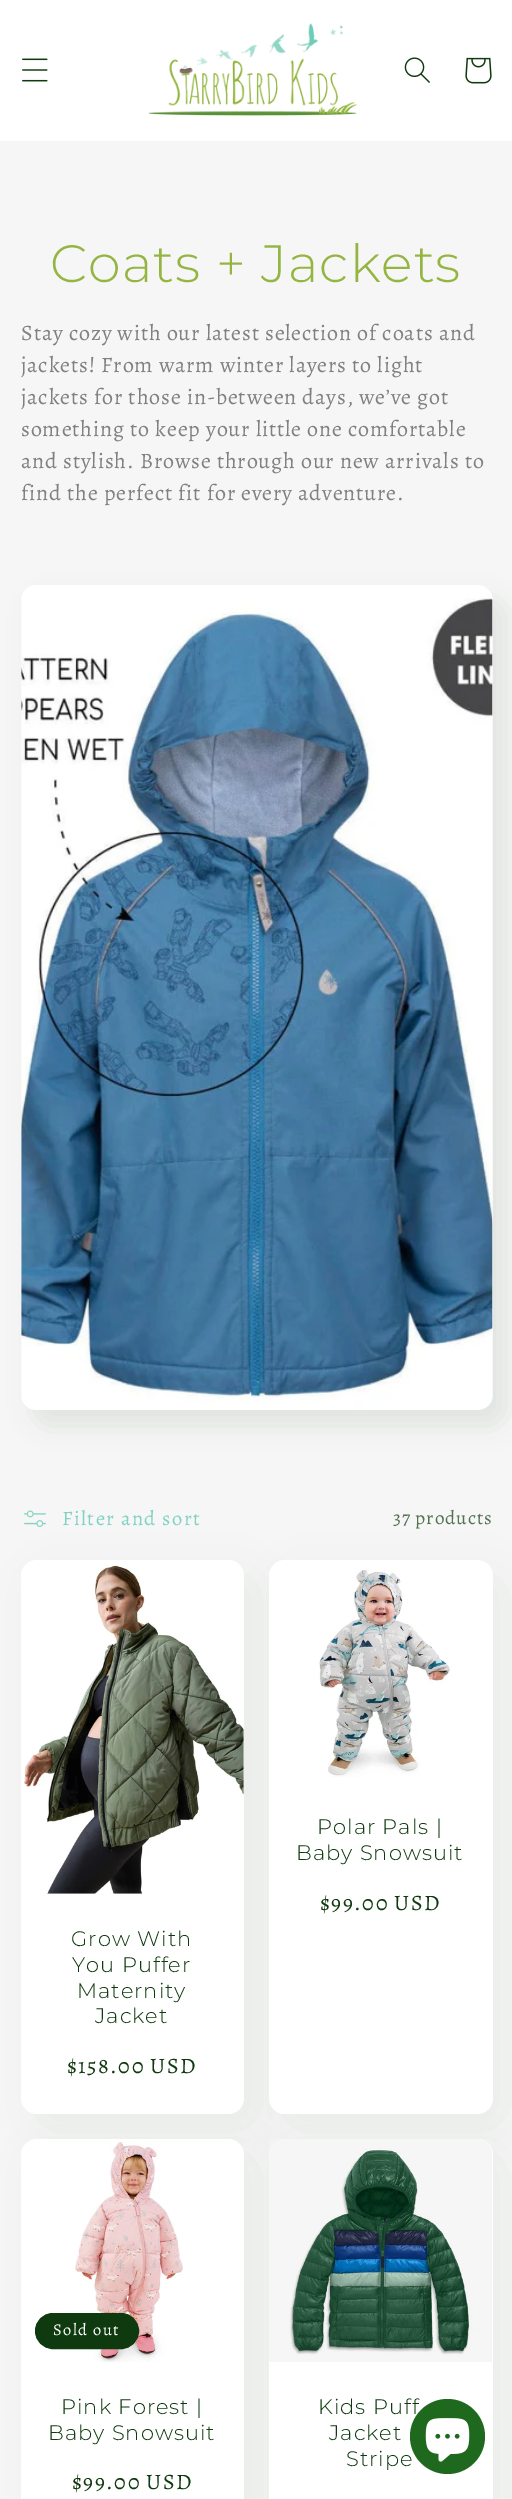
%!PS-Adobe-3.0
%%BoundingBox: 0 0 512 2499
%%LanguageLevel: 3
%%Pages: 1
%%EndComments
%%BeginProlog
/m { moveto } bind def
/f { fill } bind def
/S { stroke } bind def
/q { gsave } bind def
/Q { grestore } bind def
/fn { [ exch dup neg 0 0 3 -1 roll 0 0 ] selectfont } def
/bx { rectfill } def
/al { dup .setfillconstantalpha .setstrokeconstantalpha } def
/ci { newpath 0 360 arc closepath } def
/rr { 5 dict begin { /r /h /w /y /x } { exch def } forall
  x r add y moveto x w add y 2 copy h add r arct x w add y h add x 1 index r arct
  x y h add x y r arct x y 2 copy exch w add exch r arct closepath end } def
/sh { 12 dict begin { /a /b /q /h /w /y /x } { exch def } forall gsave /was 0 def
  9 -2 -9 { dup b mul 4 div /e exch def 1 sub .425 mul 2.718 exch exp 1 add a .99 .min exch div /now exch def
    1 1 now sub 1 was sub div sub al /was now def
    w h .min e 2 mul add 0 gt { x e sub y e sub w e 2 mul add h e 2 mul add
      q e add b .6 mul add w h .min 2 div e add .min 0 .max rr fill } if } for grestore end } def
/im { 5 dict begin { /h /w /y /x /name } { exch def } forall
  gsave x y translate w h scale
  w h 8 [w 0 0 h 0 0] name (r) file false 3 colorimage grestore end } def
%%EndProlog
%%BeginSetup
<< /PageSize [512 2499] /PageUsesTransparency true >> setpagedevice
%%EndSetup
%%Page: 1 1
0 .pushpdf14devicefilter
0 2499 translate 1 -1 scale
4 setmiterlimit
0.965 setgray
0 0 512 2499 bx
1 setgray
0 0 512 141 bx
(image0.raw) 22 58 26 24 im
(image1.raw) 148 23 209 93 im
(image2.raw) 404 57 26 26 im
(image3.raw) 465 57 27 27 im
/Montserrat-Light 52.5 fn
0.584 0.71 0.259 setrgbcolor
50 282 m 1 0 (Coats + Jackets) ashow
/Alegreya-Regular 22 fn
0.502 setgray
21 340 m 0.85 0 (Stay cozy with our latest selection of coats and) ashow
21 372 m 0.85 0 (jackets! From warm winter layers to light) ashow
21 404 m 0.85 0 (jackets for those in-between days, we’ve got) ashow
21 436 m 0.85 0 (something to keep your little one comfortable) ashow
21 468 m 0.85 0 (and stylish. Browse through our new arrivals to) ashow
21 500 m 0.85 0 (find the perfect fit for every adventure.) ashow
0.059 0.227 0.059 setrgbcolor
34 600 471 825 15 12.5 0.1 sh
0.965 setgray
21 585 472 825 15 rr f
(image4.raw) 21 585 472 825 im
0.059 0.227 0.059 setrgbcolor
35 1574 223 554 16 24 0.05 sh
(image5.raw) 24 1510 22 17 im
/Alegreya-Regular 20.5 fn
0.51 0.824 0.757 setrgbcolor
62 1525 m 1.4 0 (Filter and sort) ashow
0.059 0.227 0.059 setrgbcolor
283 1574 223 554 16 24 0.05 sh
/Alegreya-Regular 19.25 fn
0.329 0.447 0.329 setrgbcolor
393 1524 m 0.85 0 (37 products) ashow
0.059 0.227 0.059 setrgbcolor
35 2153 223 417 16 24 0.05 sh
283 2153 223 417 16 24 0.05 sh
1 setgray
269 1560 224 554 16 rr f
(image6.raw) 319 1570 131 207 im
/Montserrat-Light 21 fn
0.059 0.227 0.059 setrgbcolor
317 1834 m 1 0 (Polar Pals |) ashow
296 1860 m 1 0 (Baby Snowsuit) ashow
/Alegreya-Regular 22 fn
320 1910 m 1.4 0 ($99.00 USD) ashow
1 setgray
21 1560 223 554 16 rr f
(image7.raw) 24 1565 220 329 im
/Montserrat-Light 21 fn
0.059 0.227 0.059 setrgbcolor
71 1946 m 1 0 (Grow With) ashow
72 1972 m 1 0 (You Puffer) ashow
77 1998 m 1 0 (Maternity) ashow
95 2023 m 1 0 (Jacket) ashow
/Alegreya-Regular 22 fn
67 2073 m 1.4 0 ($158.00 USD) ashow
1 setgray
21 2139 223 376 16 rr f
(image8.raw) 75 2142 108 220 im
0.059 0.227 0.059 setrgbcolor
35.5 2313.5 103 35 17.5 rr q f Q
S
/Alegreya-Regular 16.5 fn
1 setgray
53 2335 m 1.4 0 (Sold out) ashow
/Montserrat-Light 21 fn
0.059 0.227 0.059 setrgbcolor
61 2414 m 1 0 (Pink Forest |) ashow
48 2440 m 1 0 (Baby Snowsuit) ashow
/Alegreya-Regular 22 fn
72 2489 m 1.4 0 ($99.00 USD) ashow
1 setgray
269 2139 224 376 16 rr f
(image9.raw) 269 2139 223 223 im
/Montserrat-Light 21 fn
0.059 0.227 0.059 setrgbcolor
318 2414 m 1 0 (Kids Puff) ashow
329 2440 m 1 0 (Jacket) ashow
346 2466 m 1 0 (Stripe) ashow
0.122 0.412 0.122 setrgbcolor
447.5 2436.5 37.5 ci f
(image10.raw) 425 2418 45 44 im
.poppdf14devicefilter showpage
%%EOF
